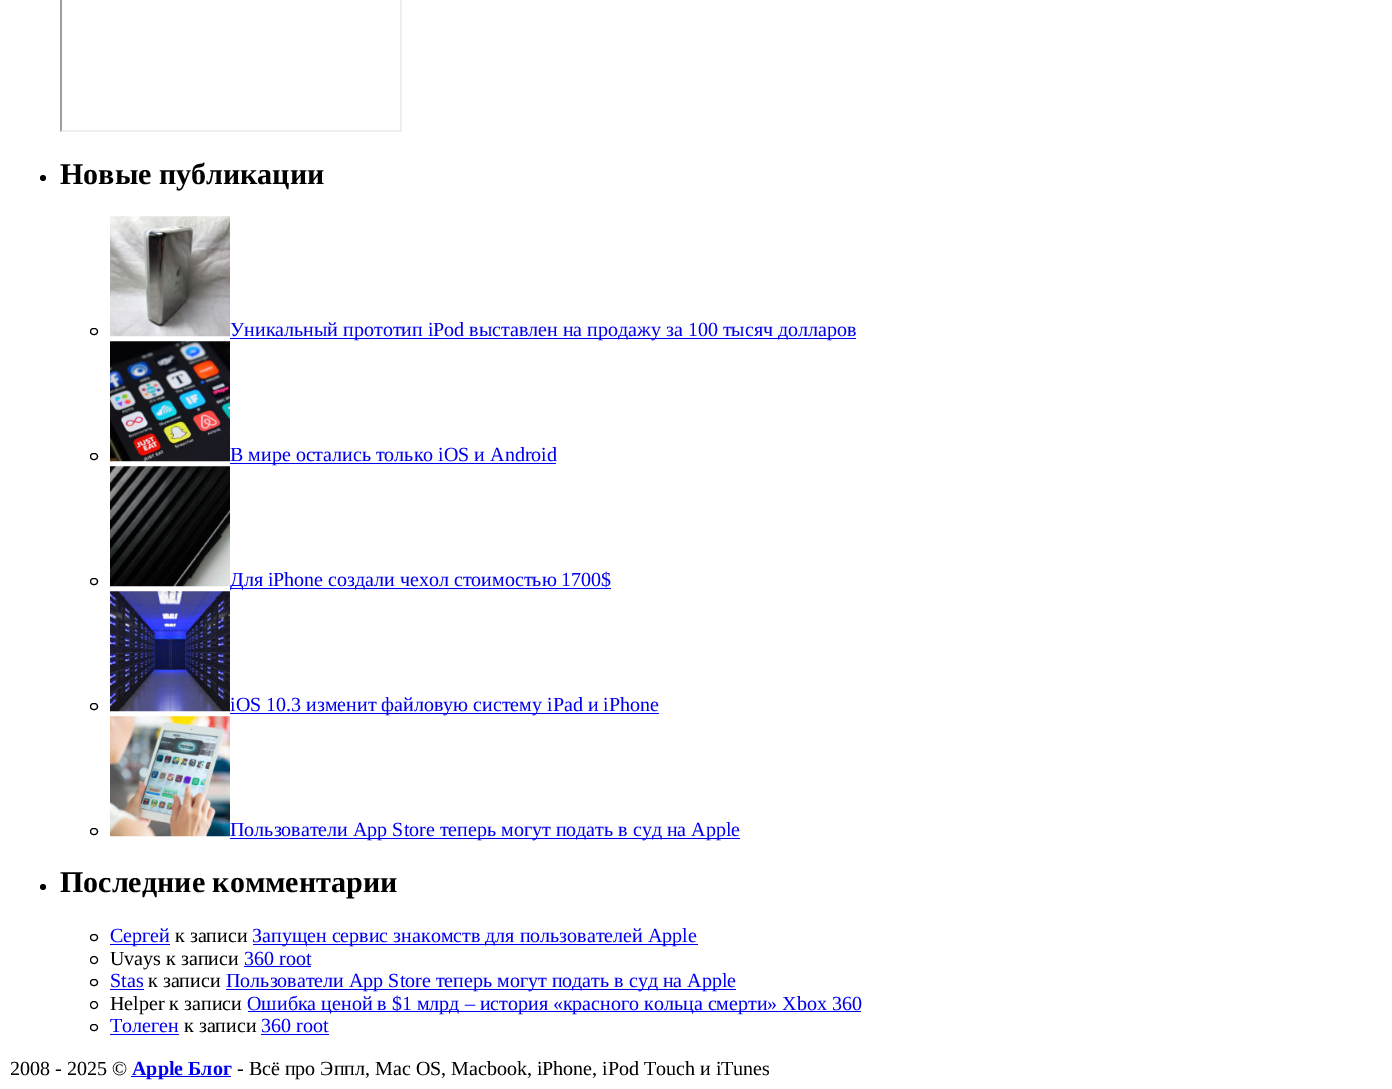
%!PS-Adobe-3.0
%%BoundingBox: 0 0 1392 1089
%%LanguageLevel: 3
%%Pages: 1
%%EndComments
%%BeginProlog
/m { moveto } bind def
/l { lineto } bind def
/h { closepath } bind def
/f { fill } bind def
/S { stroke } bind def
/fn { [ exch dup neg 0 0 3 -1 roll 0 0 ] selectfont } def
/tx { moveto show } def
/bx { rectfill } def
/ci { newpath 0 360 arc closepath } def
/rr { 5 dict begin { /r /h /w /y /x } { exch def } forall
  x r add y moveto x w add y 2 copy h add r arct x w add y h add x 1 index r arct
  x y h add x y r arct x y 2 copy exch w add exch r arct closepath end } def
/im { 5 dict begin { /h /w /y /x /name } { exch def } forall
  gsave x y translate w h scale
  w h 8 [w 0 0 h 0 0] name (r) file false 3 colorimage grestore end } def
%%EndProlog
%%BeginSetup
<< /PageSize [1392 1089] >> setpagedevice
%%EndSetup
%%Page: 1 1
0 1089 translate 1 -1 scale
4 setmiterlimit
1 setgray
0 0 1392 1089 bx
0.933 setgray
402 -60 m 402 132 l 400 130 l 400 -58 l h f
402 132 m 60 132 l 62 130 l 400 130 l h f
0.624 setgray
60 132 m 60 -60 l 62 -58 l 62 130 l h f
0 setgray
43 178 3 ci f
/LiberationSerif-Bold 30 fn
(Новые публикации) 60 184 tx
90.5 328.5 7 6 3 rr S
(image0.raw) 110 216 120 121 im
0 0 0.933 setrgbcolor
230 338 626 1 bx
/LiberationSerif-Regular 20 fn
(Уникальный прототип iPod выставлен на продажу за 100 тысяч долларов) 230 336 tx
0 setgray
90.5 453.5 7 6 3 rr S
(image1.raw) 110 341 120 121 im
0 0 0.933 setrgbcolor
230 463 326 1 bx
(В мире остались только iOS и Android) 230 461 tx
0 setgray
90.5 578.5 7 6 3 rr S
(image2.raw) 110 466 120 121 im
0 0 0.933 setrgbcolor
230 588 381 1 bx
(Для iPhone создали чехол стоимостью 1700$) 230 586 tx
0 setgray
90.5 703.5 7 6 3 rr S
(image3.raw) 110 591 120 121 im
0 0 0.933 setrgbcolor
230 713 429 1 bx
(iOS 10.3 изменит файловую систему iPad и iPhone) 230 711 tx
0 setgray
90.5 828.5 7 6 3 rr S
(image4.raw) 110 716 120 121 im
0 0 0.933 setrgbcolor
230 838 510 1 bx
(Пользователи App Store теперь могут подать в суд на Apple) 230 836 tx
0 setgray
43 887 3 ci f
/LiberationSerif-Bold 30 fn
(Последние комментарии) 60 892 tx
90.5 934.5 7 6 3 rr S
0 0 0.933 setrgbcolor
110 944 60 1 bx
/LiberationSerif-Regular 20 fn
(Сергей) 110 942 tx
0 setgray
(к записи) 175 942 tx
0 0 0.933 setrgbcolor
253 944 445 1 bx
(Запущен сервис знакомств для пользователей Apple) 252 942 tx
0 setgray
94 960 3.5 ci S
(Uvays к записи) 110 965 tx
0 0 0.933 setrgbcolor
(360 root) 244 965 tx
244 966 67 1 bx
0 setgray
90.5 979.5 7 6 3 rr S
0 0 0.933 setrgbcolor
(Stas) 110 987 tx
110 989 34 1 bx
0 setgray
(к записи) 148 987 tx
0 0 0.933 setrgbcolor
226 989 510 1 bx
(Пользователи App Store теперь могут подать в суд на Apple) 226 987 tx
0 setgray
94 1005 3.5 ci S
(Helper к записи) 110 1010 tx
0 0 0.933 setrgbcolor
248 1011 613 1 bx
(Ошибка ценой в $1 млрд – история «красного кольца смерти» Xbox 360) 247 1010 tx
0 setgray
90.5 1024.5 7 6 3 rr S
0 0 0.933 setrgbcolor
(Толеген) 110 1032 tx
110 1034 69 1 bx
0 setgray
(к записи) 184 1032 tx
0 0 0.933 setrgbcolor
(360 root) 261 1032 tx
261 1034 68 1 bx
0 setgray
(2008 - 2025 ©) 10 1075 tx
0 0 0.933 setrgbcolor
131 1076 100 1 bx
/LiberationSerif-Bold 20 fn
(Apple Блог) 132 1075 tx
/LiberationSerif-Regular 20 fn
0 setgray
(- Всё про Эппл, Mac OS, Macbook, iPhone, iPod Touch и iTunes) 237 1075 tx
showpage
%%EOF
